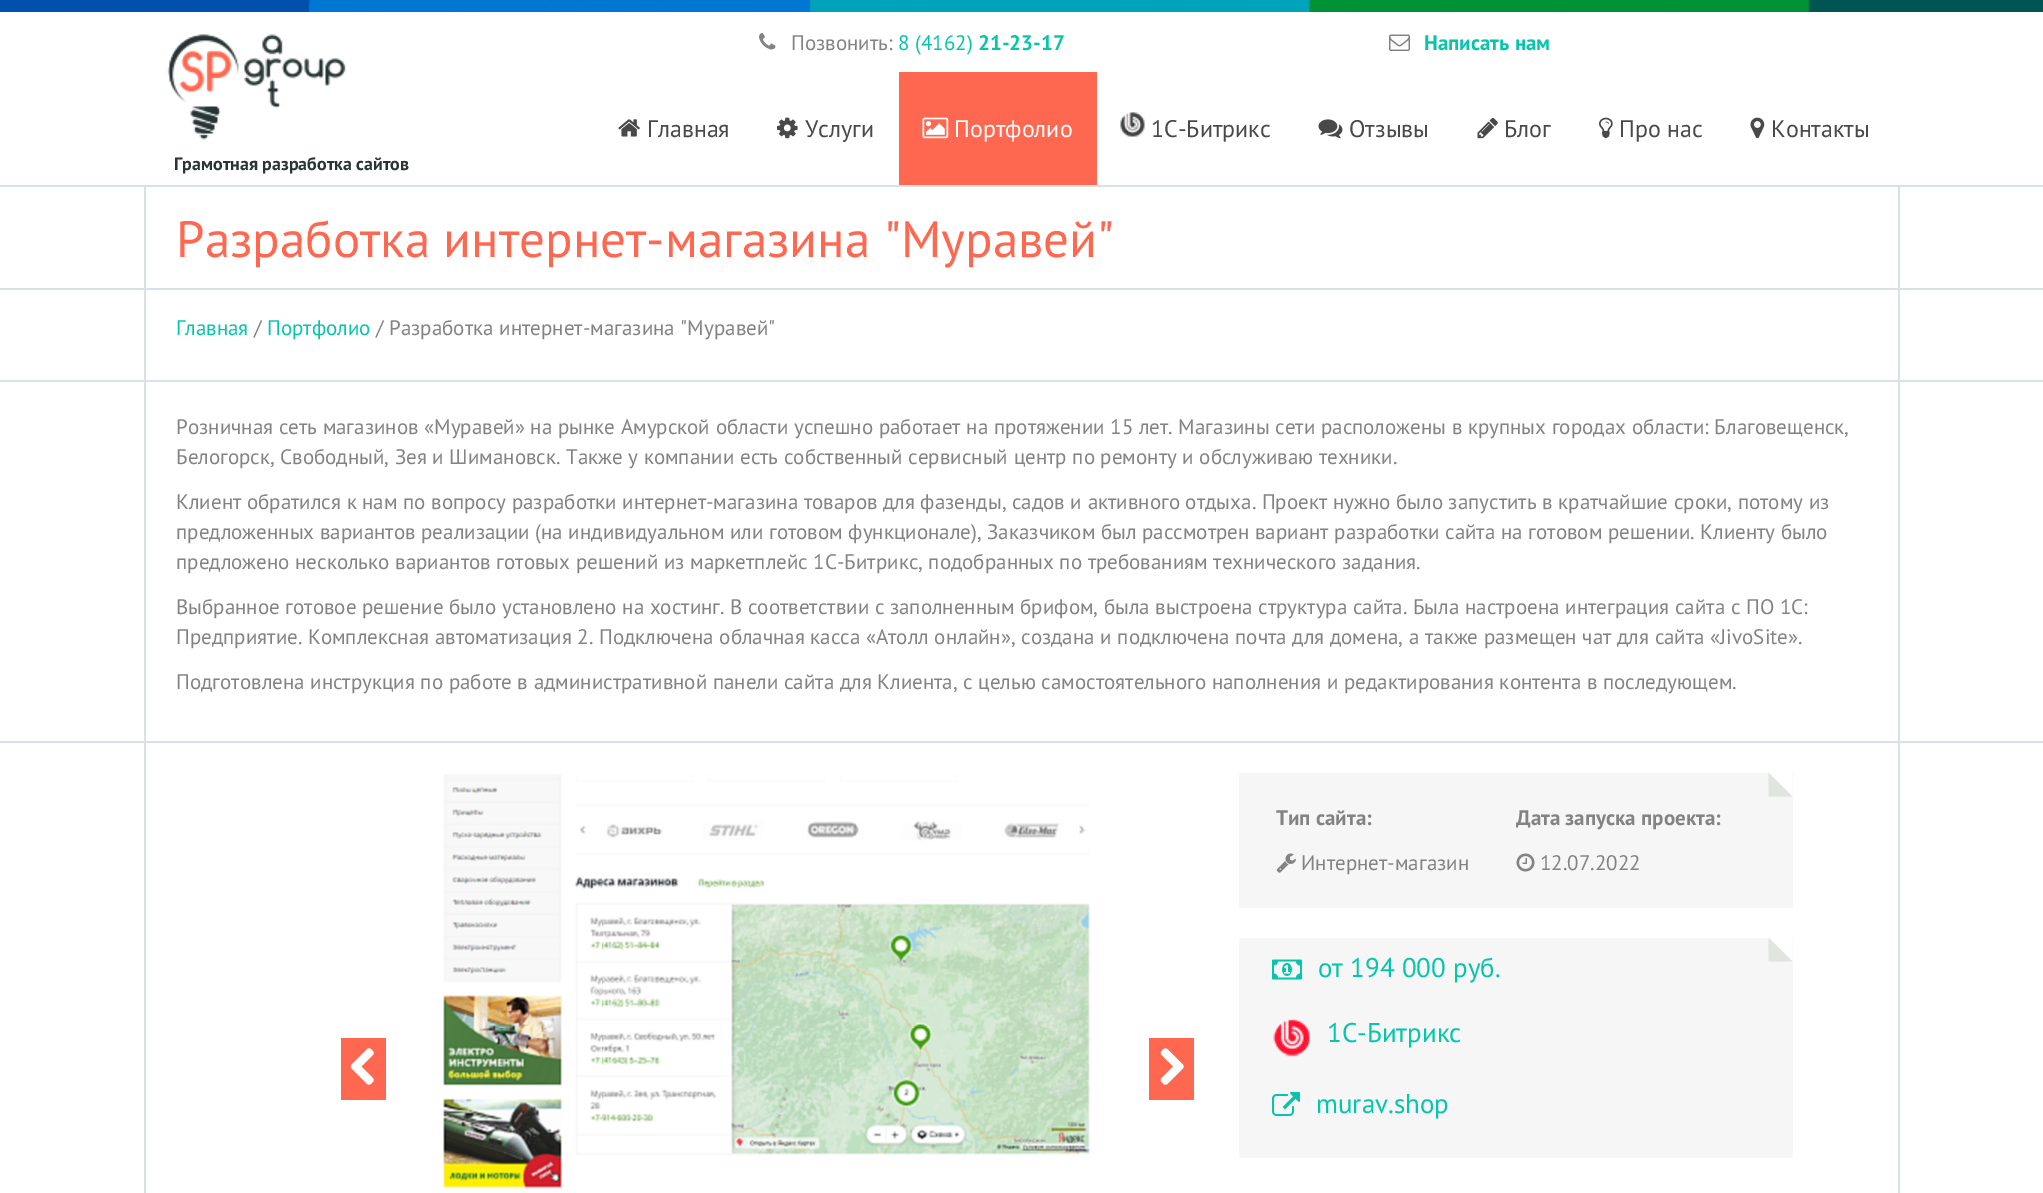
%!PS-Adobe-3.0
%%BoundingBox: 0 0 2043 1193
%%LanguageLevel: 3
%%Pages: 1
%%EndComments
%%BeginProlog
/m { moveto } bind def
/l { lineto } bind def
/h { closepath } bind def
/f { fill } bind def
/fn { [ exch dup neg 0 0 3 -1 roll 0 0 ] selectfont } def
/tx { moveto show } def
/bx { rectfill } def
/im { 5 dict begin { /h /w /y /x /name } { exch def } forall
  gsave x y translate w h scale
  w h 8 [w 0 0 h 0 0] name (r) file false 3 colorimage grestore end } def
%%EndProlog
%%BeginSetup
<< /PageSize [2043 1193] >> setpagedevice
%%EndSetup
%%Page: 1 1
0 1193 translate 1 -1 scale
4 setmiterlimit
1 setgray
0 0 2043 1193 bx
(image0.raw) 0 0 2043 12 im
0.835 0.89 0.91 setrgbcolor
1898 186 2 102 bx
144 186 2 102 bx
0 185 2043 2 bx
(image1.raw) 759 33 17 17 im
/PTSans-Regular 21 fn
0.514 setgray
(Позвонить:) 791 50 tx
0.024 0.773 0.675 setrgbcolor
(8 \(4162\)) 898 50 tx
/PTSans-Bold 21 fn
(21-23-17) 978 50 tx
(image2.raw) 1389 34 21 17 im
(Написать нам) 1424 50 tx
(image3.raw) 618 119 22 18 im
/PTSans-Regular 24 fn
0.286 setgray
(Главная) 647 137 tx
(image4.raw) 777 117 21 22 im
(Услуги) 805 137 tx
1 0.408 0.314 setrgbcolor
899 72 198 113 bx
(image5.raw) 922 117 27 22 im
1 setgray
(Портфолио) 954 137 tx
(image6.raw) 1120 112 25 25 im
0.286 setgray
(1С-Битрикс) 1151 137 tx
(image7.raw) 1318 119 25 20 im
(Отзывы) 1349 137 tx
(image8.raw) 1477 118 21 21 im
(Блог) 1504 137 tx
(image9.raw) 1599 117 14 22 im
(Про нас) 1619 137 tx
(image10.raw) 1750 117 15 22 im
(Контакты) 1771 137 tx
(image11.raw) 167 34 179 106 im
/PTSans-Bold 18 fn
0.161 0.208 0.208 setrgbcolor
(Грамотная разработка сайтов) 174 170 tx
0.835 0.89 0.91 setrgbcolor
0 288 2043 2 bx
/PTSans-Regular 51 fn
1 0.408 0.314 setrgbcolor
(Разработка интернет-магазина "Муравей") 176 257 tx
0.835 0.89 0.91 setrgbcolor
0 380 2043 2 bx
1898 290 2 90 bx
144 290 2 90 bx
/PTSans-Regular 21 fn
0.024 0.773 0.675 setrgbcolor
(Главная) 176 335 tx
0.514 setgray
(/) 254 335 tx
0.024 0.773 0.675 setrgbcolor
(Портфолио) 267 335 tx
0.514 setgray
(/ Разработка интернет-магазина "Муравей") 376 335 tx
0.835 0.89 0.91 setrgbcolor
0 741 2043 2 bx
1898 381 2 360 bx
144 381 2 360 bx
0.514 setgray
(Розничная сеть магазинов «Муравей» на рынке Амурской области успешно работает на протяжении 15 лет. Магазины сети расположены в крупных городах области: Благовещенск,) 176 434 tx
(Белогорск, Свободный, Зея и Шимановск. Также у компании есть собственный сервисный центр по ремонту и обслуживаю техники.) 176 464 tx
(Клиент обратился к нам по вопросу разработки интернет-магазина товаров для фазенды, садов и активного отдыха. Проект нужно было запустить в кратчайшие сроки, потому из) 176 509 tx
(предложенных вариантов реализации \(на индивидуальном или готовом функционале\), Заказчиком был рассмотрен вариант разработки сайта на готовом решении. Клиенту было) 176 539 tx
(предложено несколько вариантов готовых решений из маркетплейс 1С-Битрикс, подобранных по требованиям технического задания.) 176 569 tx
(Выбранное готовое решение было установлено на хостинг. В соответствии с заполненным брифом, была выстроена структура сайта. Была настроена интеграция сайта с ПО 1С:) 176 614 tx
(Предприятие. Комплексная автоматизация 2. Подключена облачная касса «Атолл онлайн», создана и подключена почта для домена, а также размещен чат для сайта «JivoSite».) 176 644 tx
(Подготовлена инструкция по работе в административной панели сайта для Клиента, с целью самостоятельного наполнения и редактирования контента в последующем.) 176 689 tx
0.835 0.89 0.91 setrgbcolor
1898 743 2 450 bx
144 743 2 450 bx
(image12.raw) 443 774 647 415 im
1 0.408 0.314 setrgbcolor
341 1038 45 62 bx
(image13.raw) 350 1048 24 37 im
1149 1038 45 62 bx
(image14.raw) 1160 1048 24 37 im
0.965 setgray
1239 773 554 135 bx
1 setgray
1792.5 772.5 m 1792.5 796.5 l 1768.5 772.5 l h f
0.878 0.898 0.878 setrgbcolor
1792.5 796.5 m 1768.5 796.5 l 1768.5 772.5 l h f
/PTSans-Bold 21 fn
0.514 setgray
(Тип сайта:) 1276 825 tx
(Дата запуска проекта:) 1516 825 tx
(image15.raw) 1276 853 20 20 im
/PTSans-Regular 21 fn
(Интернет-магазин) 1301 870 tx
(image16.raw) 1516 853 19 19 im
(12.07.2022) 1540 870 tx
0.965 setgray
1239 938 554 220 bx
1 setgray
1792.5 937.5 m 1792.5 961.5 l 1768.5 937.5 l h f
0.878 0.898 0.878 setrgbcolor
1792.5 961.5 m 1768.5 961.5 l 1768.5 937.5 l h f
(image17.raw) 1272 959 30 21 im
/PTSans-Regular 27 fn
0.024 0.773 0.675 setrgbcolor
(от 194 000 руб.) 1318 977 tx
(image18.raw) 1273 1019 37 38 im
(1С-Битрикс) 1327 1042 tx
(image19.raw) 1272 1092 28 24 im
(murav.shop) 1316 1113 tx
showpage
%%EOF
